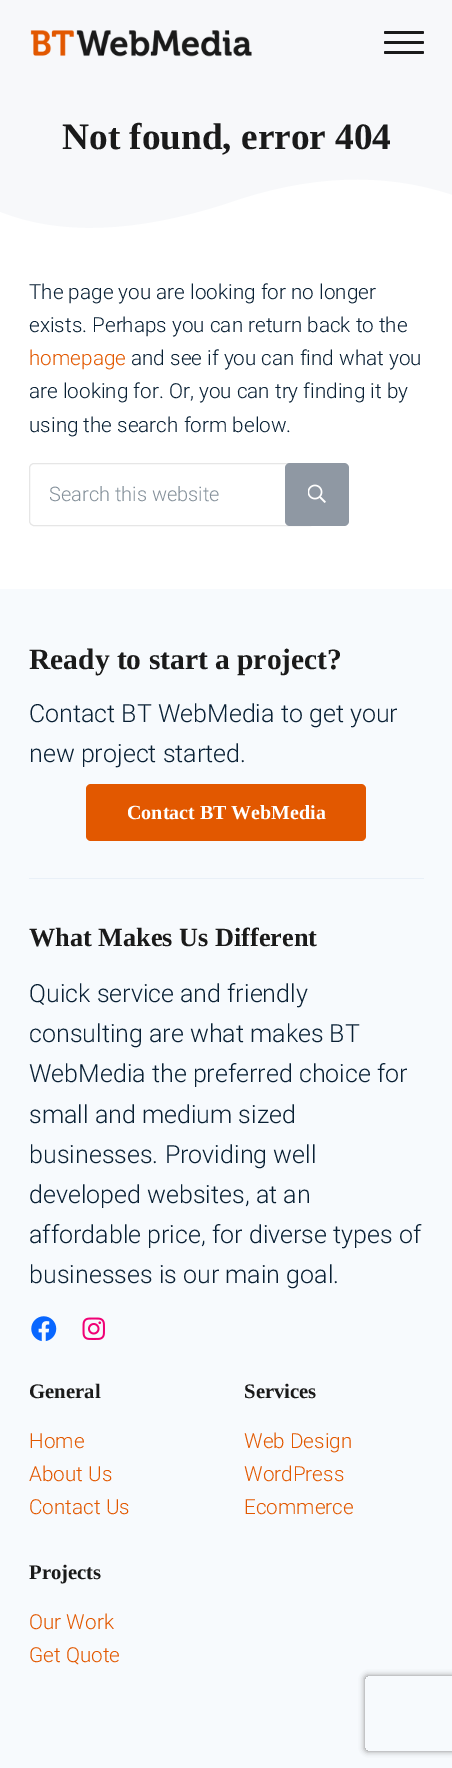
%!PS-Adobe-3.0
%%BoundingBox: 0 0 452 1768
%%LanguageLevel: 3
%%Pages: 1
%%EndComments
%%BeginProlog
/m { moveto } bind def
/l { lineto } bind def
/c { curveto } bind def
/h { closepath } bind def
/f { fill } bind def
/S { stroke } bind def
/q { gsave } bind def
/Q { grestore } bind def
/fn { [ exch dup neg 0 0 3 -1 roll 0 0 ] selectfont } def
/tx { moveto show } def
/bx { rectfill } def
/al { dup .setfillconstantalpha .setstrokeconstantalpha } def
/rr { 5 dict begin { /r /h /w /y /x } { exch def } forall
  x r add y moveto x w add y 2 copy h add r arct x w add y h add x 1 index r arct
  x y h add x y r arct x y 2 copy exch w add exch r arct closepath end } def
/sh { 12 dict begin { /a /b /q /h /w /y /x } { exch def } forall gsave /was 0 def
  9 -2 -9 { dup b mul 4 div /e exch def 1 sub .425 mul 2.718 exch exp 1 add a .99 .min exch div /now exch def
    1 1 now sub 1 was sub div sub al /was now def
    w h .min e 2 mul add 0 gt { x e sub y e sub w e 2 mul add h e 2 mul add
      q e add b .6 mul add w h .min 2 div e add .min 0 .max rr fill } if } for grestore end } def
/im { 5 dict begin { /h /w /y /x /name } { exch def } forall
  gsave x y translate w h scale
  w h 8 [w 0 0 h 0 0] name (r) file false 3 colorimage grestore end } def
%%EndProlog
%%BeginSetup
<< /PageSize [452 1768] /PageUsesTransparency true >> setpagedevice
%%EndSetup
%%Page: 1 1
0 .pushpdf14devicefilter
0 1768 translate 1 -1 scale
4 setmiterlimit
1 setgray
0 0 452 1768 bx
0.969 0.973 0.98 setrgbcolor
0 0 452 229 bx
(image0.raw) 30 30 222 27 im
0.102 setgray
384 41 40 3 1.5 rr f
384 31 40 3 1.5 rr f
384 51 40 3 1.5 rr f
/LiberationSerif-Bold 37.25 fn
(Not found, error 404) 62 149 tx
q
0 178 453 51 rectclip
1 setgray
0 212 m 60 236 136 233 226 204 c 308 175 383 172 452 195 c 452 230 l 0 230 l h f
Q
/Roboto-Light 20.7 fn
0.035 0.125 0.204 setrgbcolor
(The page you are looking for no longer) 29 299 tx
(exists. Perhaps you can return back to the) 29 332 tx
0.886 0.345 0 setrgbcolor
(homepage) 29 365 tx
0.035 0.125 0.204 setrgbcolor
(and see if you can find what you) 131 365 tx
(are looking for. Or, you can try finding it by) 29 398 tx
(using the search form below.) 29 432 tx
0.902 setgray
34 463.5 m 310.5 463.5 l 310.5 525.5 l 34 525.5 l 31.5 525.5 29.5 523.5 29.5 521 c 29.5 468 l 29.5 465.5 31.5 463.5 34 463.5 c h S
/Roboto-Light 20 fn
0.518 0.565 0.604 setrgbcolor
(Search this website) 49 501 tx
0.561 0.596 0.639 setrgbcolor
285 463 64 63 5 rr f
(image1.raw) 308 484 18 19 im
0.969 0.98 0.992 setrgbcolor
0 589 452 1179 bx
/LiberationSerif-Bold 29.5 fn
0.102 setgray
(Ready to start a project?) 29 669 tx
/Roboto-Light 25 fn
0.035 0.125 0.204 setrgbcolor
(Contact BT WebMedia to get your) 29 722 tx
(new project started.) 29 762 tx
0.886 0.345 0 setrgbcolor
86 784 280 57 5 rr f
/LiberationSerif-Bold 20 fn
1 setgray
(Contact BT WebMedia) 127 819 tx
0.914 0.941 0.973 setrgbcolor
29 878 395 1 bx
/LiberationSerif-Bold 26.25 fn
0.102 setgray
(What Makes Us Different) 29 946 tx
/Roboto-Light 25 fn
0.035 0.125 0.204 setrgbcolor
(Quick service and friendly) 29 1002 tx
(consulting are what makes BT) 29 1042 tx
(WebMedia the preferred choice for) 29 1082 tx
(small and medium sized) 29 1123 tx
(businesses. Providing well) 29 1163 tx
(developed websites, at an) 29 1203 tx
(affordable price, for diverse types of) 29 1243 tx
(businesses is our main goal.) 29 1283 tx
(image2.raw) 31 1316 26 26 im
(image3.raw) 82 1317 23 23 im
/LiberationSerif-Bold 20.7 fn
0.102 setgray
(General) 29 1398 tx
/Roboto-Light 20.7 fn
0.886 0.345 0 setrgbcolor
(Home) 29 1448 tx
(About Us) 29 1481 tx
(Contact Us) 29 1514 tx
/LiberationSerif-Bold 20.7 fn
0.102 setgray
(Services) 244 1398 tx
/Roboto-Light 20.7 fn
0.886 0.345 0 setrgbcolor
(Web Design) 244 1448 tx
(WordPress) 244 1481 tx
(Ecommerce) 244 1514 tx
/LiberationSerif-Bold 20.7 fn
0.102 setgray
(Projects) 29 1579 tx
/Roboto-Light 20.7 fn
0.886 0.345 0 setrgbcolor
(Our Work) 29 1629 tx
(Get Quote) 29 1662 tx
q
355 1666 m 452 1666 l 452 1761 l 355 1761 l h 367.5 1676 m 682.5 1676 l 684 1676 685 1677 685 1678.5 c 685 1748.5 l 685 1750 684 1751 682.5 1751 c 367.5 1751 l 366 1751 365 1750 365 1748.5 c 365 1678.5 l 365 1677 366 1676 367.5 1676 c h eoclip newpath
0.502 setgray
365 1676 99 75 2.5 3 1 sh
Q
.poppdf14devicefilter showpage
%%EOF
